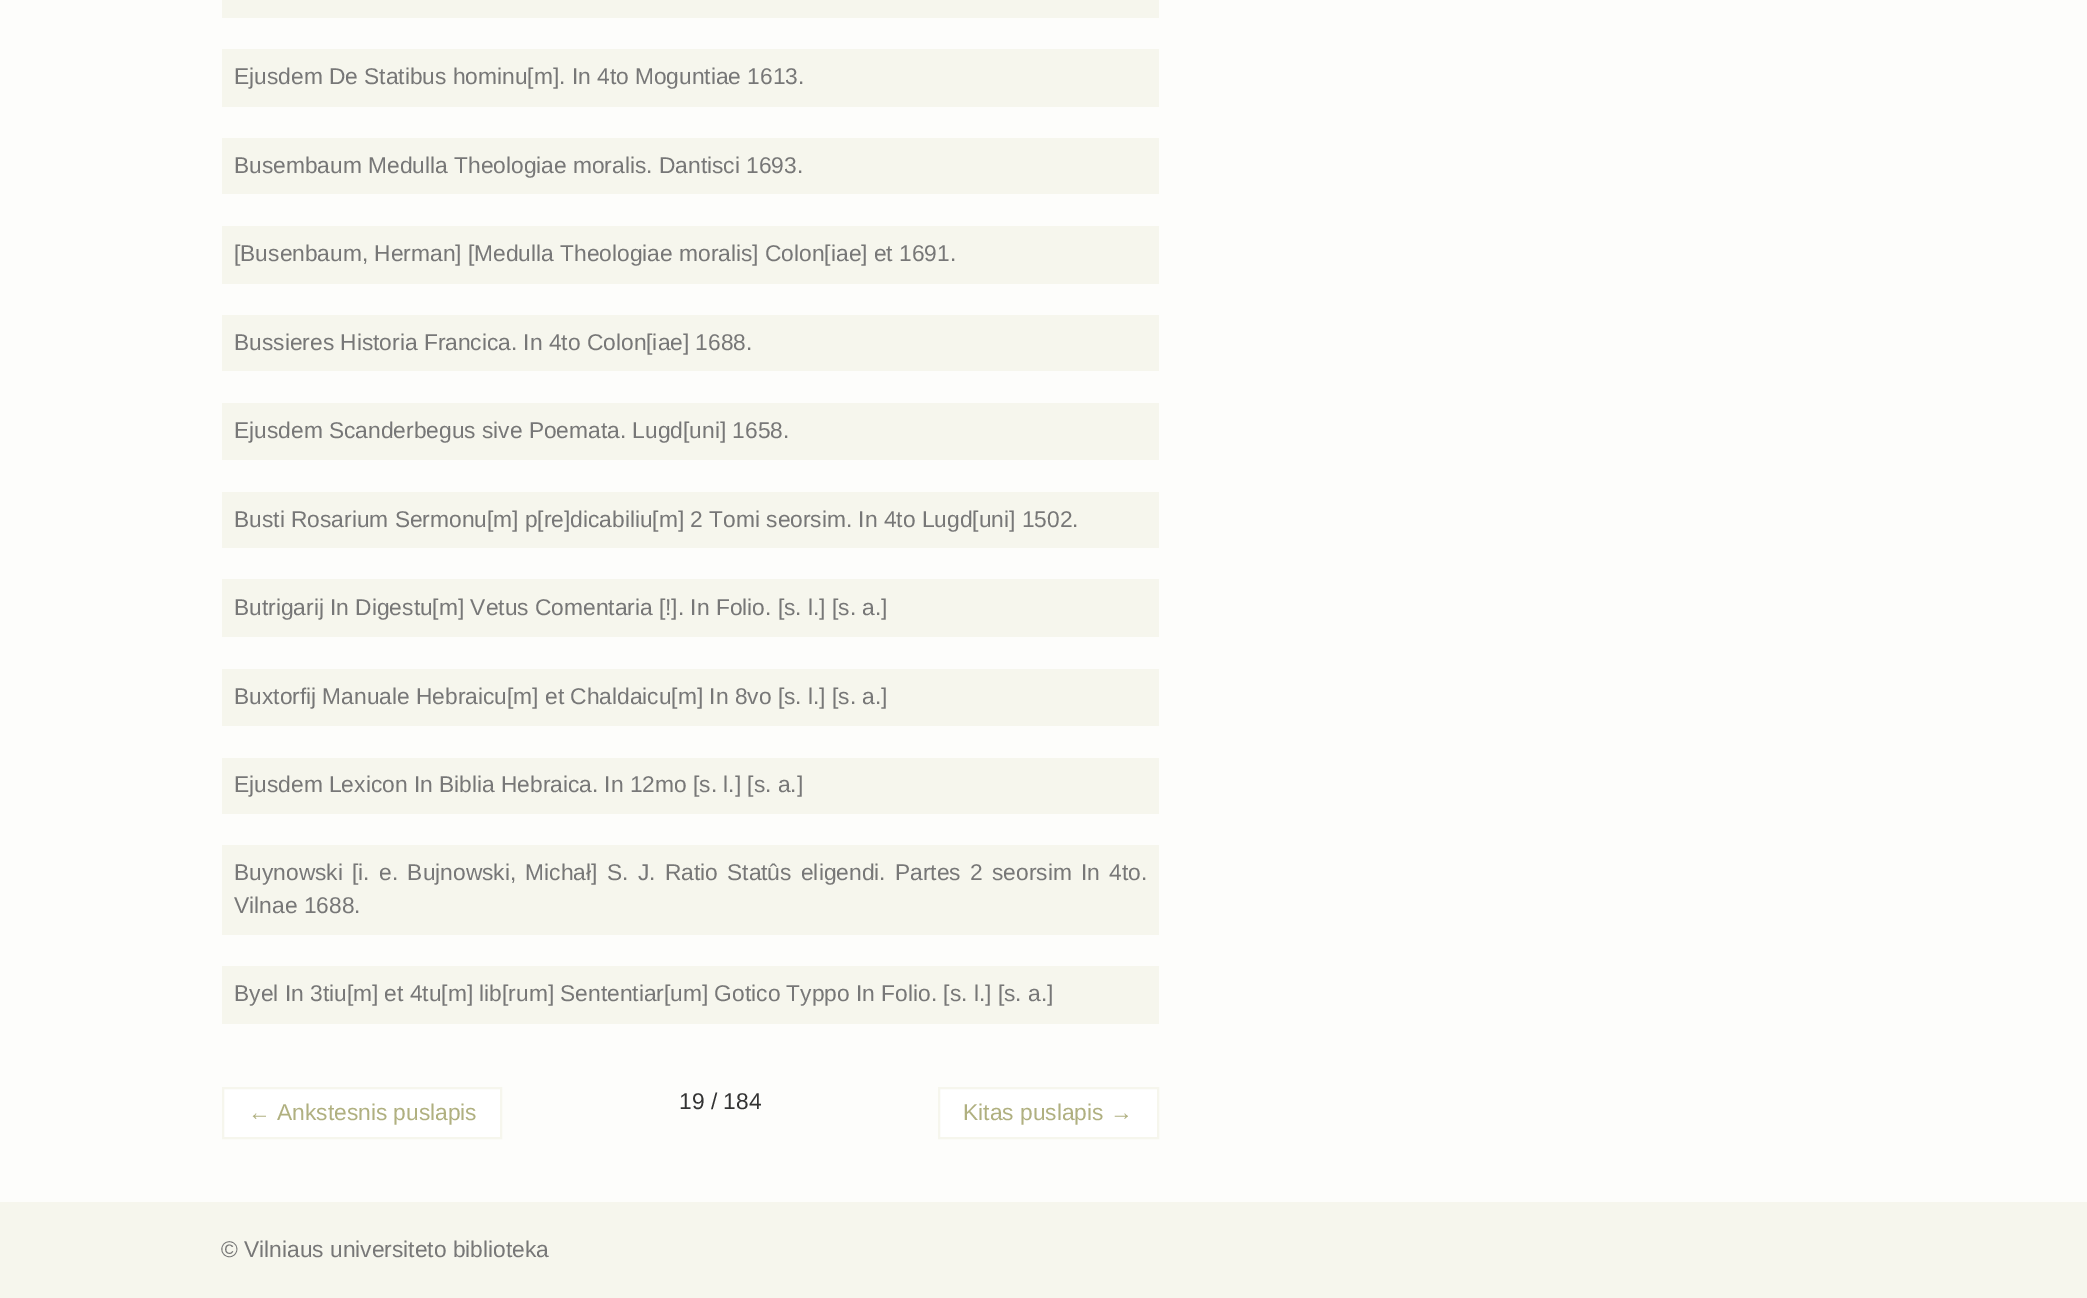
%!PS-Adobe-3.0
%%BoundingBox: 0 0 2087 1298
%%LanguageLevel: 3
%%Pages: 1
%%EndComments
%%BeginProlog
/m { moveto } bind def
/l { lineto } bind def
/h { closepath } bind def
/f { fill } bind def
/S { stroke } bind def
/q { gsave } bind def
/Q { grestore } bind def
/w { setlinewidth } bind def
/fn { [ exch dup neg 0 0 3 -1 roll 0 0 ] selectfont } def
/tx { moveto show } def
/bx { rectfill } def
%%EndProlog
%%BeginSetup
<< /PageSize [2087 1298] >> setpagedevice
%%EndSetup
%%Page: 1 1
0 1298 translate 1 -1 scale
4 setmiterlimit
0.965 0.965 0.929 setrgbcolor
0 0 2087 1298 bx
0.992 0.992 0.984 setrgbcolor
0 0 2087 1202 bx
0.965 0.965 0.929 setrgbcolor
222 0 937 18 bx
222 49 937 58 bx
/LiberationSans-Regular 22.75 fn
0.467 setgray
(Ejusdem De Statibus hominu[m]. In 4to Moguntiae 1613.) 234 84 tx
0.965 0.965 0.929 setrgbcolor
222 138 937 56 bx
0.467 setgray
(Busembaum Medulla Theologiae moralis. Dantisci 1693.) 234 173 tx
0.965 0.965 0.929 setrgbcolor
222 226 937 58 bx
0.467 setgray
([Busenbaum, Herman] [Medulla Theologiae moralis] Colon[iae] et 1691.) 234 261 tx
0.965 0.965 0.929 setrgbcolor
222 315 937 56 bx
0.467 setgray
(Bussieres Historia Francica. In 4to Colon[iae] 1688.) 234 350 tx
0.965 0.965 0.929 setrgbcolor
222 403 937 57 bx
0.467 setgray
(Ejusdem Scanderbegus sive Poemata. Lugd[uni] 1658.) 234 438 tx
0.965 0.965 0.929 setrgbcolor
222 492 937 56 bx
0.467 setgray
(Busti Rosarium Sermonu[m] p[re]dicabiliu[m] 2 Tomi seorsim. In 4to Lugd[uni] 1502.) 234 527 tx
0.965 0.965 0.929 setrgbcolor
222 579 937 58 bx
0.467 setgray
(Butrigarij In Digestu[m] Vetus Comentaria [!]. In Folio. [s. l.] [s. a.]) 234 615 tx
0.965 0.965 0.929 setrgbcolor
222 669 937 57 bx
0.467 setgray
(Buxtorfij Manuale Hebraicu[m] et Chaldaicu[m] In 8vo [s. l.] [s. a.]) 234 704 tx
0.965 0.965 0.929 setrgbcolor
222 758 937 56 bx
0.467 setgray
(Ejusdem Lexicon In Biblia Hebraica. In 12mo [s. l.] [s. a.]) 234 792 tx
0.965 0.965 0.929 setrgbcolor
222 845 937 90 bx
0.467 setgray
234 880 m 3 0 32 (Buynowski [i. e. Bujnowski, Michał] S. J. Ratio Statûs eligendi. Partes 2 seorsim In 4to.) widthshow
(Vilnae 1688.) 234 913 tx
0.965 0.965 0.929 setrgbcolor
222 966 937 58 bx
0.467 setgray
(Byel In 3tiu[m] et 4tu[m] lib[rum] Sententiar[um] Gotico Typpo In Folio. [s. l.] [s. a.]) 234 1001 tx
0.2 setgray
(19 / 184) 679 1109 tx
1 setgray
223 1088 m 501 1088 l 501 1138 l 223 1138 l h q f Q
0.965 0.965 0.929 setrgbcolor
2 w
S
0.69 0.69 0.502 setrgbcolor
(← Ankstesnis puslapis) 248 1120 tx
1 setgray
939 1088 m 1158 1088 l 1158 1138 l 939 1138 l h q f Q
0.965 0.965 0.929 setrgbcolor
S
0.69 0.69 0.502 setrgbcolor
(Kitas puslapis →) 963 1120 tx
0.467 setgray
(© Vilniaus universiteto biblioteka) 221 1257 tx
showpage
%%EOF
